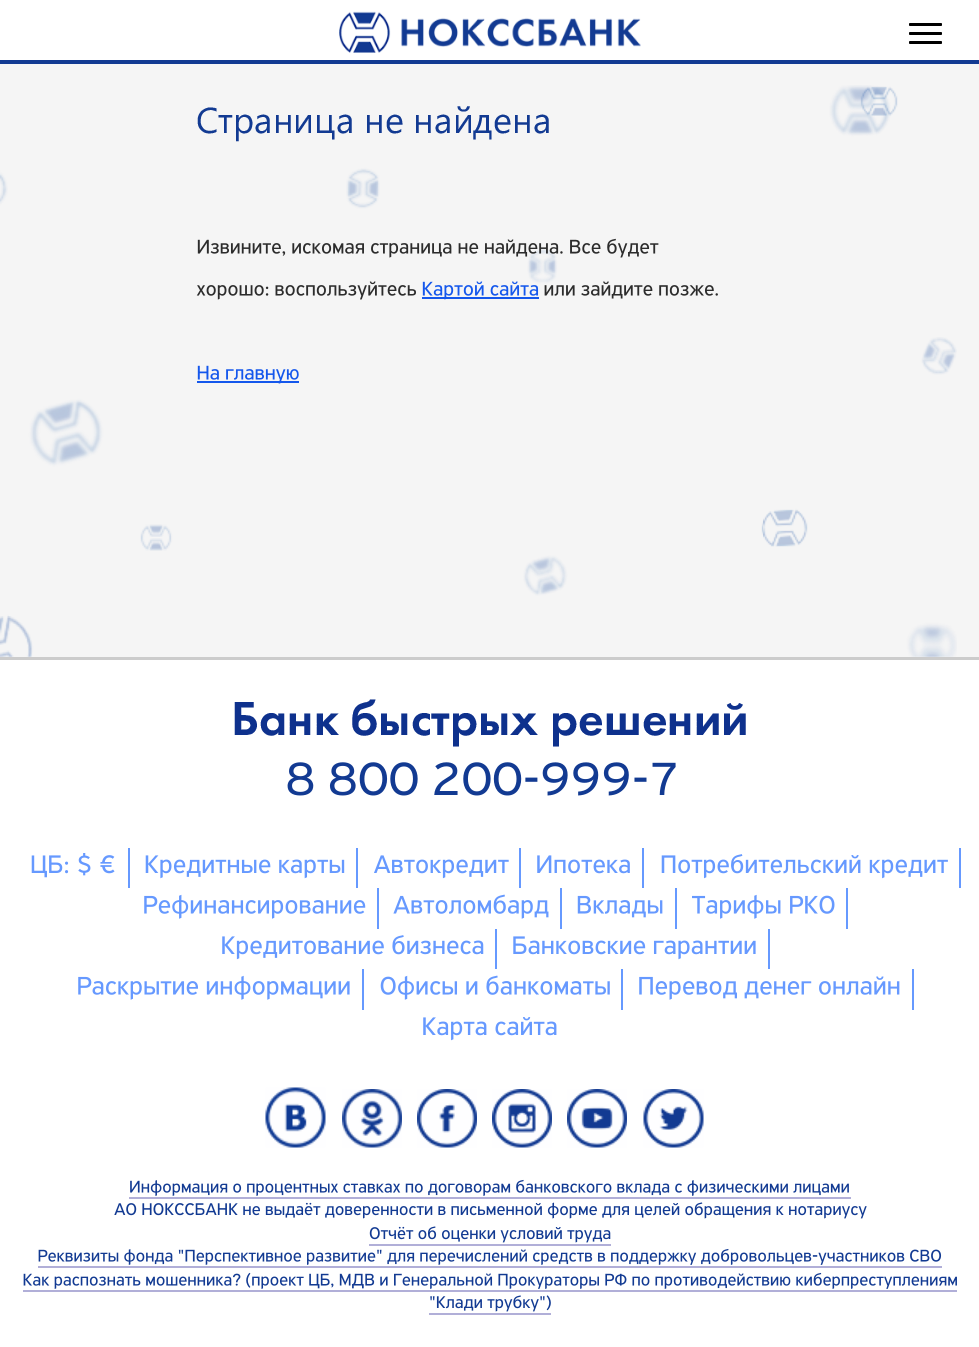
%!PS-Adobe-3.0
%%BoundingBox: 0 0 979 1347
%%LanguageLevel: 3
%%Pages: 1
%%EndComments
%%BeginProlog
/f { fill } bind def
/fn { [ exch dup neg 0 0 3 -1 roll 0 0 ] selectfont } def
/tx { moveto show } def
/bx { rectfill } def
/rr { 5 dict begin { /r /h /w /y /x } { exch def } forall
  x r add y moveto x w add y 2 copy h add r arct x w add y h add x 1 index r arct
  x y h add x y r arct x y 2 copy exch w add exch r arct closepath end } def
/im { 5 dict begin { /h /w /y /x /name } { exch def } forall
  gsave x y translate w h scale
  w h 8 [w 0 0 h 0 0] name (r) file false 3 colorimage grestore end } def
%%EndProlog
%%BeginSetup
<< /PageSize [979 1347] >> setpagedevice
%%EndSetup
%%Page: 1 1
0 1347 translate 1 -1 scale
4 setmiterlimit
1 setgray
0 0 979 1347 bx
0.071 0.227 0.573 setrgbcolor
0 60 979 4 bx
(image0.raw) 339 11 302 42 im
0 setgray
909 23 33 3 1.5 rr f
909 32 33 3 1.5 rr f
909 41 33 3 1.5 rr f
0.961 setgray
0 64 979 593 bx
0.8 setgray
0 657 979 3 bx
(image2.raw) 0 86 898 461 im
(image1.raw) 0 85 957 572 im
/SegoeUI-Regular 36 fn
0.071 0.227 0.573 setrgbcolor
(Страница не найдена) 196 133 tx
(image3.raw) 197 238 462 20 im
(image4.raw) 196 281 220 19 im
0.078 0.341 0.925 setrgbcolor
422 297 117 2 bx
(image5.raw) 422 281 117 19 im
(image6.raw) 544 281 174 18 im
197 381 102 2 bx
(image7.raw) 197 365 102 19 im
/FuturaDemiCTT-Regular 49.5 fn
0.055 0.192 0.553 setrgbcolor
(Банк быстрых решений) 231 735 tx
(image8.raw) 287 762 389 34 im
0.4 0.6 1 setrgbcolor
128 848 2 40 bx
(image9.raw) 31 853 60 25 im
(image10.raw) 100 855 15 19 im
356 848 2 40 bx
(image11.raw) 145 855 200 24 im
519 848 2 40 bx
(image12.raw) 374 855 135 24 im
642 848 2 40 bx
(image13.raw) 537 855 93 19 im
959 848 2 40 bx
(image14.raw) 661 854 287 25 im
377 888 2 41 bx
(image15.raw) 144 894 222 25 im
560 888 2 41 bx
(image16.raw) 393 894 156 25 im
675 888 2 41 bx
(image17.raw) 577 895 86 23 im
846 888 2 41 bx
(image18.raw) 692 894 143 25 im
495 929 2 40 bx
(image19.raw) 222 935 262 25 im
768 929 2 40 bx
(image20.raw) 513 936 243 24 im
362 969 2 41 bx
(image21.raw) 78 975 272 25 im
621 969 2 41 bx
(image22.raw) 380 975 230 25 im
912 969 2 41 bx
(image23.raw) 639 976 261 24 im
(image24.raw) 423 1017 134 24 im
(image25.raw) 265 1087 61 61 im
(image26.raw) 342 1089 60 59 im
(image27.raw) 417 1089 60 59 im
(image28.raw) 492 1089 60 59 im
(image29.raw) 567 1089 60 59 im
(image30.raw) 643 1089 61 59 im
(image31.raw) 130 1179 719 17 im
0.694 0.686 0.847 setrgbcolor
129 1197 722 2 bx
(image32.raw) 114 1202 753 17 im
(image33.raw) 369 1226 242 17 im
369 1244 242 2 bx
(image34.raw) 38 1248 904 17 im
38 1266 904 2 bx
(image35.raw) 23 1272 934 17 im
23 1290 934 2 bx
(image36.raw) 430 1295 121 17 im
429 1313 122 2 bx
showpage
%%EOF
